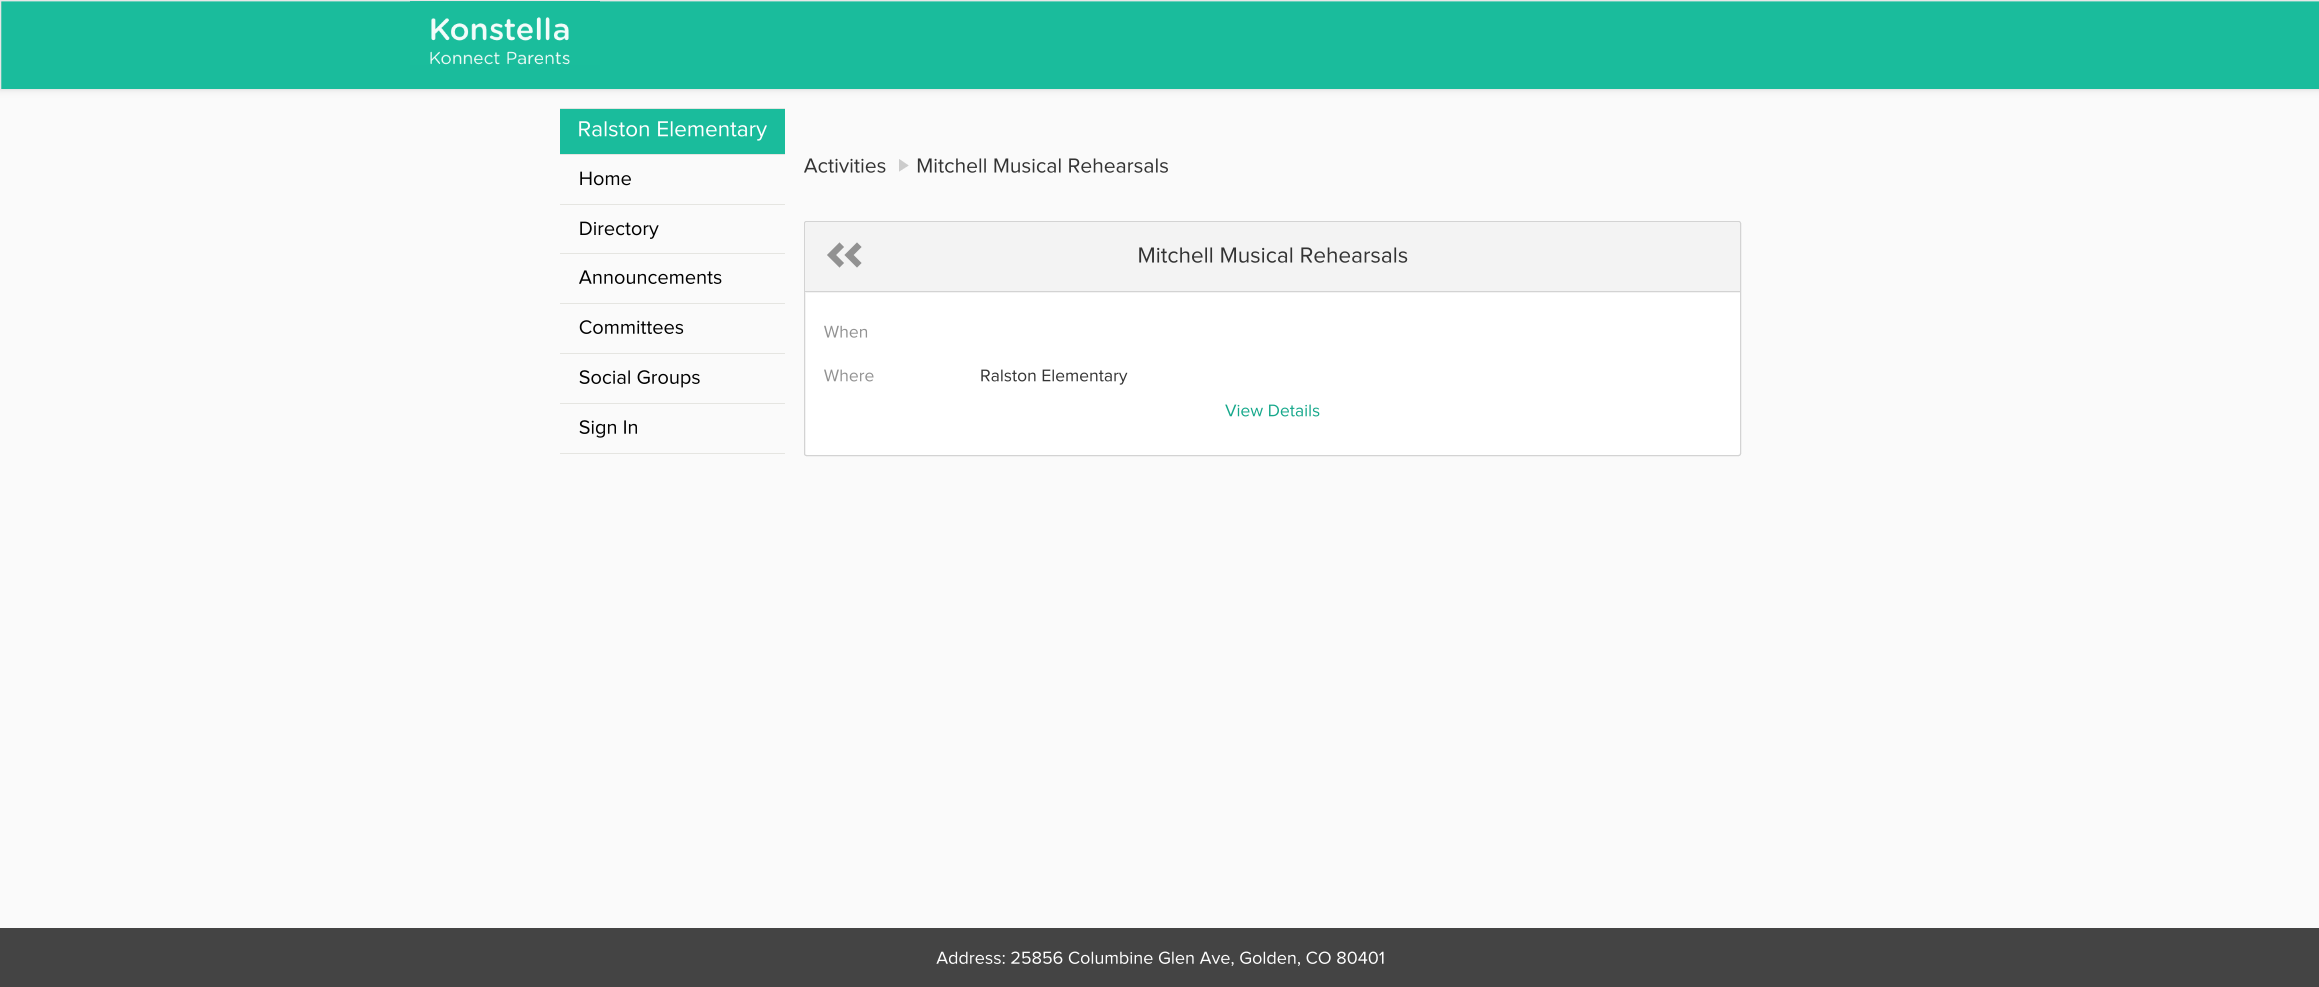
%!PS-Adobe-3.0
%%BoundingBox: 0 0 2319 987
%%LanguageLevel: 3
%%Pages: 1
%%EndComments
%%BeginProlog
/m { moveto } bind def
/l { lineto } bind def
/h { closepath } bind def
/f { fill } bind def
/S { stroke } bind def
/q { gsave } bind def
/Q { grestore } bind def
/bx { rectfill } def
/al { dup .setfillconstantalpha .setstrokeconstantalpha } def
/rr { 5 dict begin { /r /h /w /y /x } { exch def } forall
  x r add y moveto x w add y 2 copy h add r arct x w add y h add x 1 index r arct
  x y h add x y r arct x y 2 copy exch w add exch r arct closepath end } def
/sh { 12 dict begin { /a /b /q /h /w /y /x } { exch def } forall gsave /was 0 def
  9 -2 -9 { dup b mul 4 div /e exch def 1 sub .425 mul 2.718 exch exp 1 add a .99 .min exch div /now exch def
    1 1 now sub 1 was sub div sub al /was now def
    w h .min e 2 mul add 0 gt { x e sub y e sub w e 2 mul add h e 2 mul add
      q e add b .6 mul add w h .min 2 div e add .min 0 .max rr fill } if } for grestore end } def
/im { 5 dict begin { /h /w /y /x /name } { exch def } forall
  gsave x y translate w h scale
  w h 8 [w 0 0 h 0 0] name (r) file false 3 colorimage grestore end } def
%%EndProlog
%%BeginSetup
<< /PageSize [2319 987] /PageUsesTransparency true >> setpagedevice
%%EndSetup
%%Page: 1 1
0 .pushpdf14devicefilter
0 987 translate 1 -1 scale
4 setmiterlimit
0.98 setgray
0 0 2319 987 bx
0 setgray
0 1 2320 90 0 3 0.07 sh
0.102 0.737 0.612 setrgbcolor
1 2 2318 87 bx
0.235 0.776 0.671 setrgbcolor
1 1 2318 1 bx
0.906 setgray
0.5 0.5 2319 89 rectstroke
(image0.raw) 410 1 190 64 im
0.898 0.898 0.882 setrgbcolor
560 453 225 1 bx
560 108 225 1 bx
0.102 0.737 0.612 setrgbcolor
560 109 225 45 bx
(image1.raw) 579 121 188 20 im
0.898 0.898 0.882 setrgbcolor
560 154 225 1 bx
(image2.raw) 580 171 51 15 im
560 204 225 1 bx
(image3.raw) 580 221 79 18 im
560 253 225 1 bx
(image4.raw) 579 270 143 14 im
560 303 225 1 bx
(image5.raw) 579 320 105 14 im
560 353 225 1 bx
(image6.raw) 579 370 121 18 im
560 403 225 1 bx
(image7.raw) 579 420 58 18 im
(image8.raw) 804 158 82 15 im
0.8 setgray
899 171.5 m 899 159 l 908.5 165.5 l h f
(image9.raw) 917 158 251 15 im
1 setgray
804.5 221.5 936 234 2 rr q f Q
0.827 setgray
S
0.953 setgray
805 223 935 70 bx
0.827 setgray
805 291 935 1 bx
0.573 setgray
844 247 m 836 255 l 844 263 l 839.5 267.5 l 827 255 l 839.5 242.5 l h 861.5 247 m 853.5 255 l 861.5 263 l 857 267.5 l 844.5 255 l 857 242.5 l h f
(image10.raw) 1139 247 269 16 im
(image11.raw) 824 325 44 13 im
(image12.raw) 824 369 50 13 im
(image13.raw) 981 369 147 16 im
(image14.raw) 1225 404 95 13 im
0.267 setgray
0 928 2319 59 bx
(image15.raw) 936 951 448 15 im
.poppdf14devicefilter showpage
%%EOF
